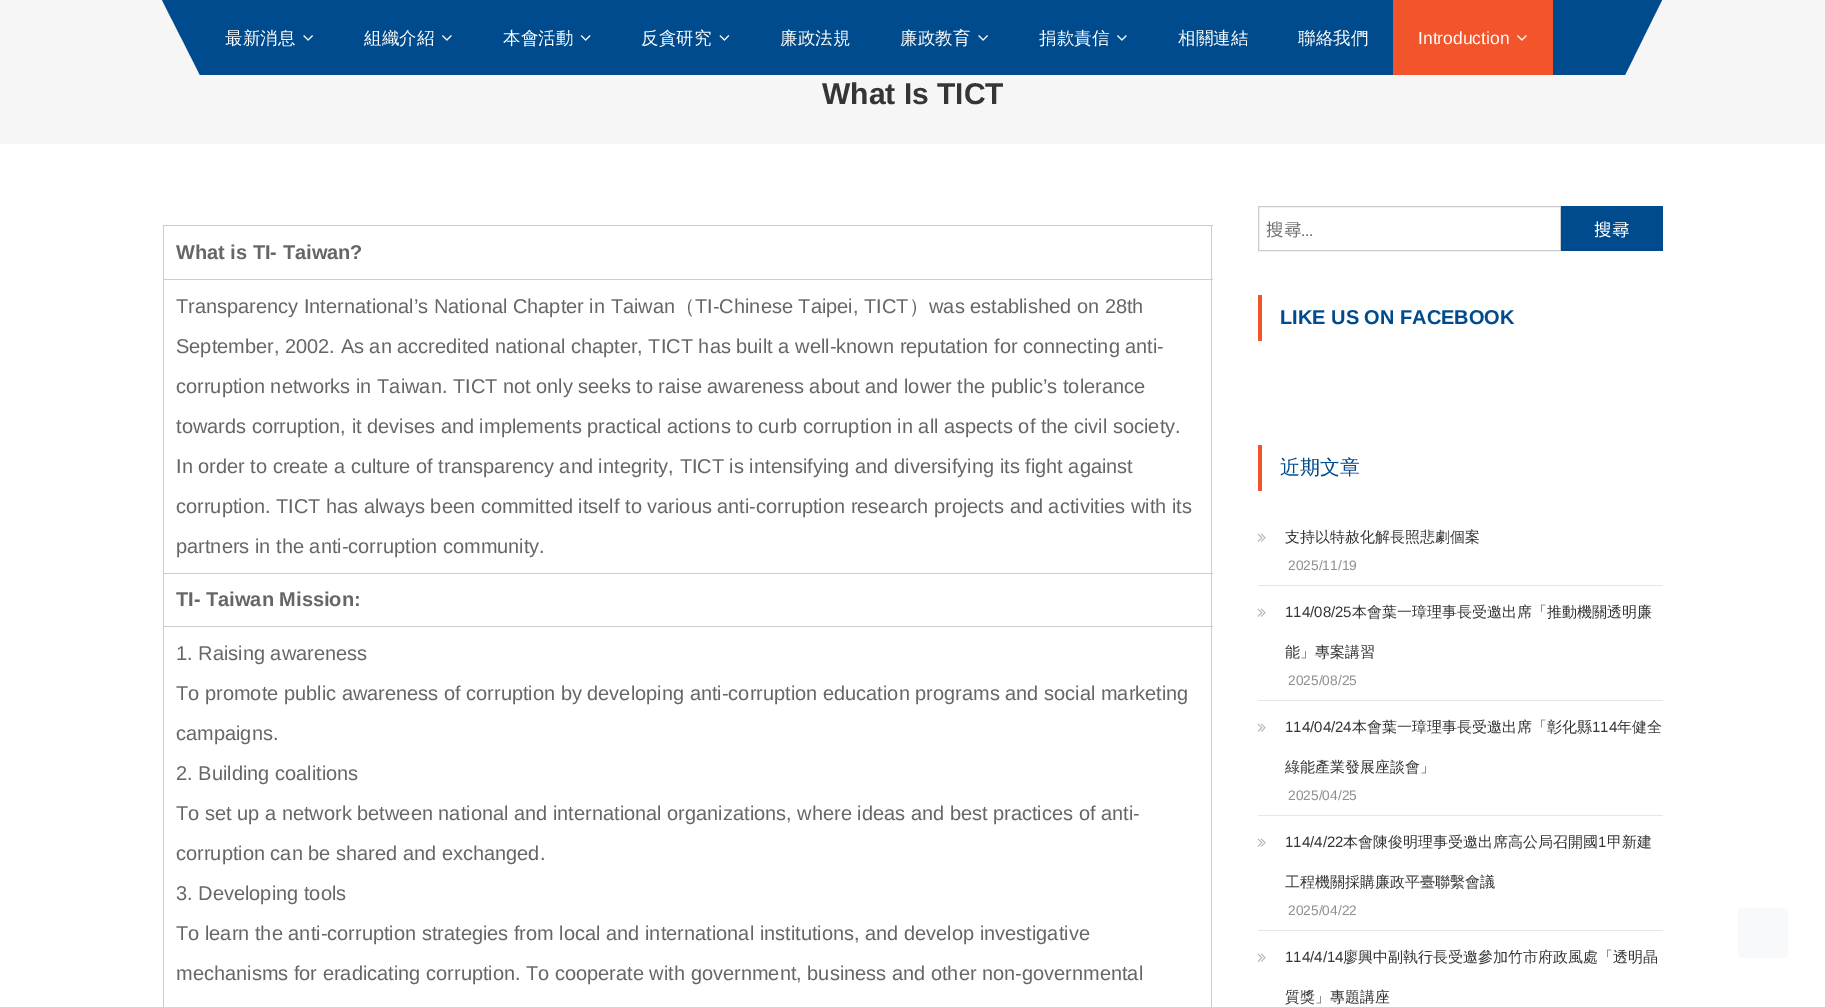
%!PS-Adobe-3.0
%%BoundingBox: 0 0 1825 1007
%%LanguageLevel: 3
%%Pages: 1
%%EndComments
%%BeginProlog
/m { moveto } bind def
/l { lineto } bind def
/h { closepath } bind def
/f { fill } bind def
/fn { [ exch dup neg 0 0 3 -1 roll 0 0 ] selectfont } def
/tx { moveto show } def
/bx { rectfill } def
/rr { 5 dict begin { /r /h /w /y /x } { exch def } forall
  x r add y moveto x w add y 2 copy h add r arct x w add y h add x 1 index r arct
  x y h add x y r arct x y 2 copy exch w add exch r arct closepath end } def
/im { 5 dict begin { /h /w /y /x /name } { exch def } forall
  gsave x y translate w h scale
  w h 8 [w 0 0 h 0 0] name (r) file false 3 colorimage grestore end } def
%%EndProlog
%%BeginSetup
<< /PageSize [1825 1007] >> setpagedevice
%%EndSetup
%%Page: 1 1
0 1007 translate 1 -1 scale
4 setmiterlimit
1 setgray
0 0 1825 1007 bx
0.965 setgray
0 0 1825 144 bx
0 0.294 0.557 setrgbcolor
200 0 1425 75 bx
162 0 m 238 0 l 200 75 l h f
/WenQuanYiZenHei-Medium 17.5 fn
1 setgray
(最新消息) 225 44 tx
(image0.raw) 303 35 10 6 im
(組織介紹) 364 44 tx
(image1.raw) 442 35 10 6 im
(本會活動) 503 44 tx
(image2.raw) 580 35 11 6 im
(反貪研究) 641 44 tx
(image3.raw) 719 35 11 6 im
(廉政法規) 780 44 tx
(廉政教育) 900 44 tx
(image0.raw) 978 35 10 6 im
(捐款責信) 1039 44 tx
(image1.raw) 1117 35 10 6 im
(相關連結) 1178 44 tx
(聯絡我們) 1298 44 tx
0.949 0.333 0.173 setrgbcolor
1393 0 160 75 bx
/LiberationSans-Regular 17.5 fn
1 setgray
(Introduction) 1418 44 tx
(image4.raw) 1517 35 10 6 im
0 0.294 0.557 setrgbcolor
1588 0 m 1662 0 l 1625 75 l h f
/LiberationSans-Bold 30 fn
0.208 setgray
(What Is TICT) 822 104 tx
0.8 setgray
163 225 1050 1 bx
163 279 1050 1 bx
163 573 1050 1 bx
163 626 1050 1 bx
1211 626 1 381 bx
1211 573 1 55 bx
1211 279 1 295 bx
1211 225 1 55 bx
163 626 1 381 bx
163 573 1 55 bx
163 279 1 295 bx
163 225 1 55 bx
/LiberationSans-Bold 20 fn
0.4 setgray
(What is TI- Taiwan?) 176 259 tx
/LiberationSans-Regular 20 fn
(Transparency International’s National Chapter in Taiwan) 176 313 tx
/WenQuanYiZenHei-Medium 20 fn
(（) 675 313 tx
/LiberationSans-Regular 20 fn
(TI-Chinese Taipei, TICT) 695 313 tx
/WenQuanYiZenHei-Medium 20 fn
(）) 909 313 tx
/LiberationSans-Regular 20 fn
(was established on 28th) 929 313 tx
(September, 2002. As an accredited national chapter, TICT has built a well-known reputation for connecting anti-) 176 353 tx
(corruption networks in Taiwan. TICT not only seeks to raise awareness about and lower the public’s tolerance) 176 393 tx
(towards corruption, it devises and implements practical actions to curb corruption in all aspects of the civil society.) 176 433 tx
(In order to create a culture of transparency and integrity, TICT is intensifying and diversifying its fight against) 176 473 tx
(corruption. TICT has always been committed itself to various anti-corruption research projects and activities with its) 176 513 tx
(partners in the anti-corruption community.) 176 553 tx
/LiberationSans-Bold 20 fn
(TI- Taiwan Mission:) 176 606 tx
/LiberationSans-Regular 20 fn
(1. Raising awareness) 176 660 tx
(To promote public awareness of corruption by developing anti-corruption education programs and social marketing) 176 700 tx
(campaigns.) 176 740 tx
(2. Building coalitions) 176 780 tx
(To set up a network between national and international organizations, where ideas and best practices of anti-) 176 820 tx
(corruption can be shared and exchanged.) 176 860 tx
(3. Developing tools) 176 900 tx
(To learn the anti-corruption strategies from local and international institutions, and develop investigative) 176 940 tx
(mechanisms for eradicating corruption. To cooperate with government, business and other non-governmental) 176 980 tx
0.8 setgray
1258.5 206.5 302 44 rectstroke
/NotoSansCJKTC-Regular 17.5 fn
0.459 setgray
(搜尋) 1266 236 tx
/RobotoSlab-Regular 17.5 fn
(...) 1301 236 tx
0 0.294 0.557 setrgbcolor
1561 206 102 45 bx
/NotoSansCJKTC-Regular 17.5 fn
1 setgray
(搜尋) 1594 236 tx
0.949 0.333 0.173 setrgbcolor
1258 295 4 46 bx
/LiberationSans-Bold 20 fn
0 0.294 0.557 setrgbcolor
(LIKE US ON FACEBOOK) 1280 324 tx
0.949 0.333 0.173 setrgbcolor
1258 445 4 46 bx
/WenQuanYiZenHei-Medium 20 fn
0 0.294 0.557 setrgbcolor
(近期文章) 1280 474 tx
0.902 setgray
1258 585 405 1 bx
(image5.raw) 1257 533 9 9 im
/WenQuanYiZenHei-Medium 15 fn
0.208 setgray
(支持以特赦化解長照悲劇個案) 1285 542 tx
/LiberationSans-Regular 13.75 fn
0.561 setgray
(2025/11/19) 1288 570 tx
0.902 setgray
1258 700 405 1 bx
(image5.raw) 1257 608 9 9 im
/LiberationSans-Regular 15 fn
0.208 setgray
(114/08/25) 1285 617 tx
/WenQuanYiZenHei-Medium 15 fn
(本會葉一璋理事長受邀出席「推動機關透明廉) 1352 617 tx
(能」專案講習) 1285 657 tx
/LiberationSans-Regular 13.75 fn
0.561 setgray
(2025/08/25) 1288 685 tx
0.902 setgray
1258 815 405 1 bx
(image5.raw) 1257 723 9 9 im
/LiberationSans-Regular 15 fn
0.208 setgray
(114/04/24) 1285 732 tx
/WenQuanYiZenHei-Medium 15 fn
(本會葉一璋理事長受邀出席「彰化縣) 1352 732 tx
/LiberationSans-Regular 15 fn
(114) 1592 732 tx
/WenQuanYiZenHei-Medium 15 fn
(年健全) 1617 732 tx
(綠能產業發展座談會」) 1285 772 tx
/LiberationSans-Regular 13.75 fn
0.561 setgray
(2025/04/25) 1288 800 tx
0.902 setgray
1258 930 405 1 bx
(image5.raw) 1257 838 9 9 im
/LiberationSans-Regular 15 fn
0.208 setgray
(114/4/22) 1285 847 tx
/WenQuanYiZenHei-Medium 15 fn
(本會陳俊明理事受邀出席高公局召開國) 1343 847 tx
/LiberationSans-Regular 15 fn
(1) 1598 847 tx
/WenQuanYiZenHei-Medium 15 fn
(甲新建) 1607 847 tx
(工程機關採購廉政平臺聯繫會議) 1285 887 tx
/LiberationSans-Regular 13.75 fn
0.561 setgray
(2025/04/22) 1288 915 tx
(image5.raw) 1257 953 9 9 im
/LiberationSans-Regular 15 fn
0.208 setgray
(114/4/14) 1285 962 tx
/WenQuanYiZenHei-Medium 15 fn
(廖興中副執行長受邀參加竹市府政風處「透明晶) 1343 962 tx
(質獎」專題講座) 1285 1002 tx
0.969 0.976 0.984 setrgbcolor
1738 908 50 50 4 rr f
showpage
%%EOF
